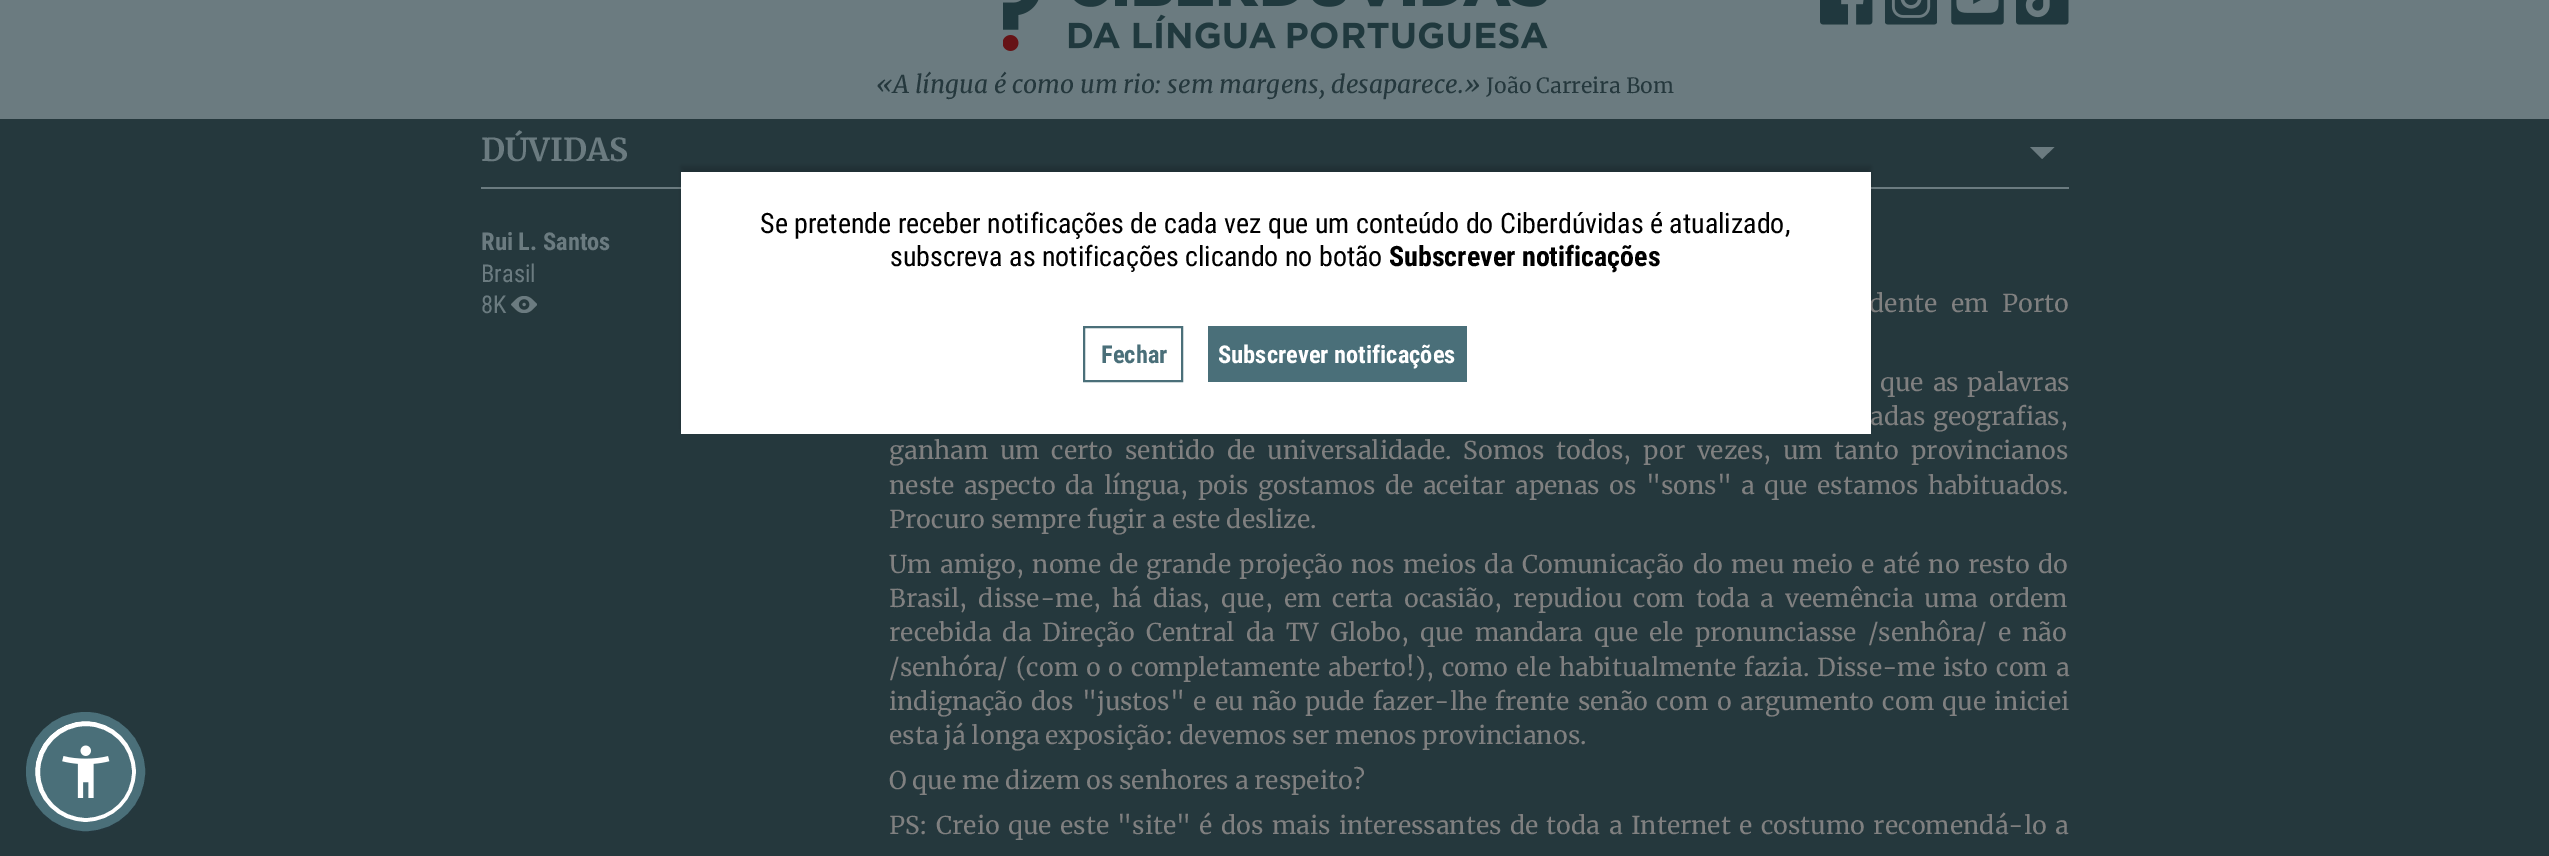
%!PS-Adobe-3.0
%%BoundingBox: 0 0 2549 856
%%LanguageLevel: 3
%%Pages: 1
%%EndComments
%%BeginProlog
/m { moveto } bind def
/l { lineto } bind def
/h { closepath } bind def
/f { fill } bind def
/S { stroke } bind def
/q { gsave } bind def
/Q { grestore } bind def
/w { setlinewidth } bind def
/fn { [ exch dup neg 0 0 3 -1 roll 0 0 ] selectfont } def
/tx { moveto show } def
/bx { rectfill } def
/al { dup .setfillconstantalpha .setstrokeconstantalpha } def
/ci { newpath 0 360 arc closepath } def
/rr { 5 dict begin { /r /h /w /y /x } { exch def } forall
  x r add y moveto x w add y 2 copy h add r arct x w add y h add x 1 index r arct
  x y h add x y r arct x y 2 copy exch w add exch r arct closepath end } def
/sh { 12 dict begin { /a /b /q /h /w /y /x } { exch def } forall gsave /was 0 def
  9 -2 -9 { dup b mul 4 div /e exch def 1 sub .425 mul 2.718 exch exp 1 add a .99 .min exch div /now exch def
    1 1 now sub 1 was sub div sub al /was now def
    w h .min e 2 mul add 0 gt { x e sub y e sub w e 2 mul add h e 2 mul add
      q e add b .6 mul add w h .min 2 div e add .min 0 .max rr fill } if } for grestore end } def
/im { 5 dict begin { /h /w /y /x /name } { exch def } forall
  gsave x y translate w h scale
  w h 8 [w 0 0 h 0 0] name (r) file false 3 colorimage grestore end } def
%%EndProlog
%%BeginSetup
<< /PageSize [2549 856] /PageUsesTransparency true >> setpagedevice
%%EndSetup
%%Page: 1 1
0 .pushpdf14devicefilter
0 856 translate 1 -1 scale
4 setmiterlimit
0.42 0.482 0.502 setrgbcolor
0 0 2549 856 bx
0.145 0.22 0.239 setrgbcolor
0 119 2549 737 bx
0.365 0.392 0.58 setrgbcolor
35 725 102 101 50.5 3.5 0.2 sh
0.29 0.435 0.475 setrgbcolor
86 772 48.5 ci q f Q
1 setgray
5 w
S
0.29 0.435 0.475 setrgbcolor
9 w
85.5 771.5 55 ci S
(image0.raw) 62 745 48 53 im
(image1.raw) 1003 0 545 51 im
(image2.raw) 1820 0 53 25 im
(image3.raw) 1885 0 52 25 im
(image4.raw) 1951 0 53 25 im
(image5.raw) 2016 0 53 25 im
/Merriweather-Italic 24.5 fn
0.145 0.22 0.239 setrgbcolor
(«A língua é como um rio: sem margens, desaparece.») 876 93 tx
/Merriweather-Regular 21 fn
(João Carreira Bom) 1486 93 tx
0.42 0.482 0.502 setrgbcolor
481 187 1588 2 bx
/Merriweather-Bold 31.5 fn
(DÚVIDAS) 481 161 tx
2030 147 m 2054.5 147 l 2042 159 l h f
/RobotoCondensed-Bold 24.5 fn
(Rui L. Santos) 481 250 tx
/RobotoCondensed-Regular 24.5 fn
(Brasil) 481 282 tx
(8K) 481 313 tx
(image6.raw) 511 296 26 17 im
/Merriweather-Regular 24.5 fn
0.502 setgray
1869 312 m 8 0 32 (dente em Porto) widthshow
1880 391 m 3 0 32 (que as palavras) widthshow
1870 425 m 2 0 32 (adas geografias,) widthshow
889 459 m 5.9 0 32 (ganham um certo sentido de universalidade. Somos todos, por vezes, um tanto provincianos) widthshow
889 494 m 3.6 0 32 (neste aspecto da língua, pois gostamos de aceitar apenas os "sons" a que estamos habituados.) widthshow
(Procuro sempre fugir a este deslize.) 889 528 tx
889 573 m 2.5 0 32 (Um amigo, nome de grande projeção nos meios da Comunicação do meu meio e até no resto do) widthshow
889 607 m 5 0 32 (Brasil, disse-me, há dias, que, em certa ocasião, repudiou com toda a veemência uma ordem) widthshow
889 641 m 5.25 0 32 (recebida da Direção Central da TV Globo, que mandara que ele pronunciasse /senhôra/ e não) widthshow
889 676 m 2 0 32 (/senhóra/ \(com o) widthshow
(o) 1108 676 tx
1131 676 m 2 0 32 (completamente aberto!\), como ele habitualmente fazia. Disse-me isto com a) widthshow
889 710 m 2.5 0 32 (indignação dos "justos" e eu não pude fazer-lhe frente senão com o argumento com que iniciei) widthshow
(esta já longa exposição: devemos ser menos provincianos.) 889 744 tx
(O que me dizem os senhores a respeito?) 889 789 tx
889 834 m 2.5 0 32 (PS: Creio que este "site" é dos mais interessantes de toda a Internet e costumo recomendá-lo a) widthshow
0 setgray
681 166 1190 263 0 2.5 0.15 sh
1 setgray
681 172 1190 262 bx
/RobotoCondensed-Regular 28 fn
0 setgray
(Se pretende receber notificações de cada vez que um conteúdo do Ciberdúvidas é atualizado,) 760 233 tx
(subscreva as notificações clicando no botão) 890 266 tx
/RobotoCondensed-Bold 28 fn
(Subscrever notificações) 1389 266 tx
0.29 0.435 0.475 setrgbcolor
2 w
1084 327 98 54 rectstroke
/RobotoCondensed-Bold 24.5 fn
(Fechar) 1101 363 tx
1208 326 259 56 bx
1 setgray
(Subscrever notificações) 1218 363 tx
.poppdf14devicefilter showpage
%%EOF
